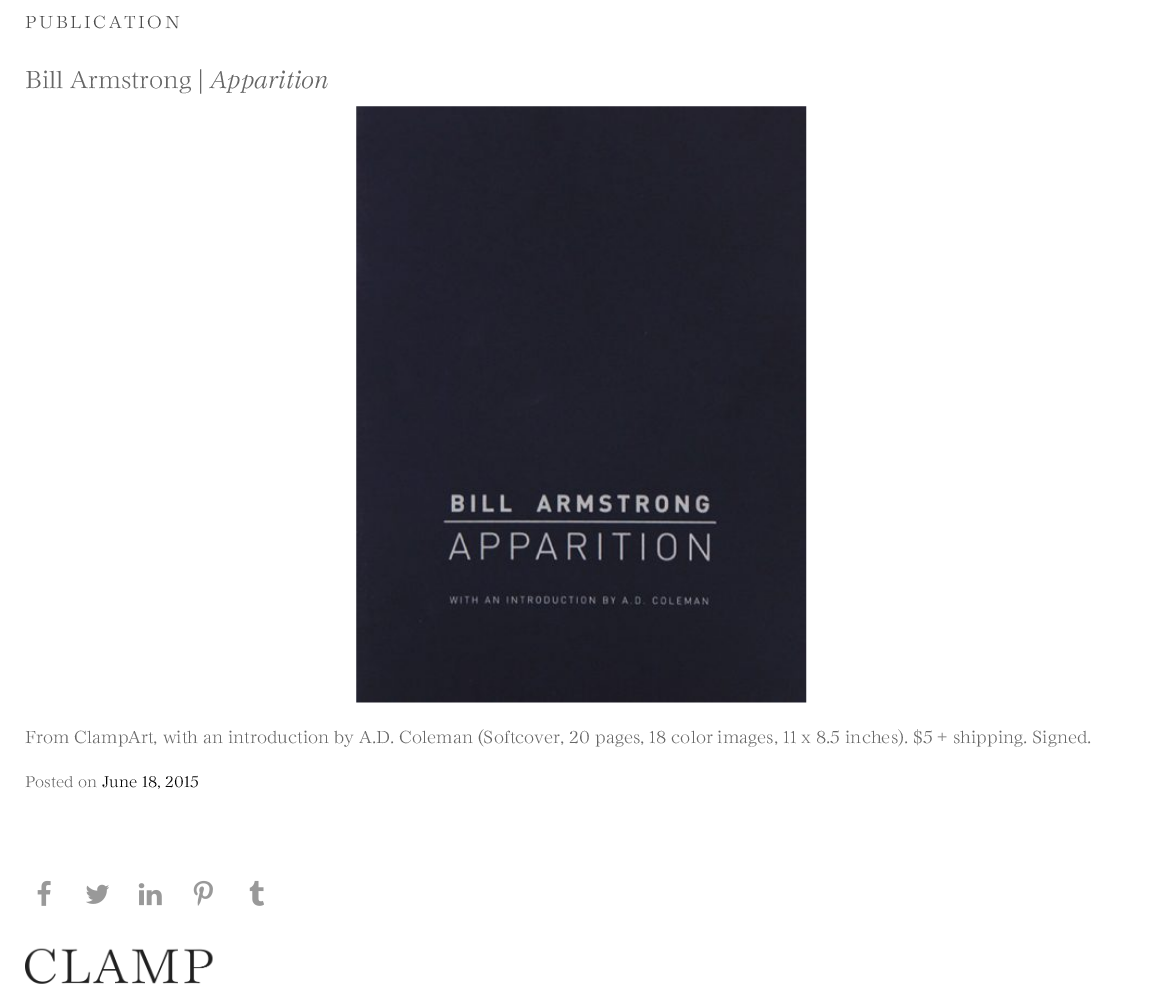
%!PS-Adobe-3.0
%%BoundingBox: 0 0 1162 995
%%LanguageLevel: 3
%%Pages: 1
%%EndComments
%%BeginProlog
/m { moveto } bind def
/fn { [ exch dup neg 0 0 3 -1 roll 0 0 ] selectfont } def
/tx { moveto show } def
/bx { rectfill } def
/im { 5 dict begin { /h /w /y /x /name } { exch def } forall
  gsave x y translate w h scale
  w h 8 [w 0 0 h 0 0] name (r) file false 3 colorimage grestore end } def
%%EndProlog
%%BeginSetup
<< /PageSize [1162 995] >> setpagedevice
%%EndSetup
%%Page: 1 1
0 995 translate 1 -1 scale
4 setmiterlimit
1 setgray
0 0 1162 995 bx
/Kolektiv-Light 19.2 fn
0.298 setgray
25 28 m 2.5 0 (PUBLICATION) ashow
/Kolektiv-Light 27 fn
0.4 setgray
(Bill Armstrong) 25 88 tx
/LiberationSerif-Regular 27 fn
(|) 198 88 tx
/Kolektiv-LightItalic 27 fn
(Apparition) 210 88 tx
(image0.raw) 356 106 451 597 im
/Kolektiv-Light 19.2 fn
(From ClampArt, with an introduction by A.D. Coleman \(Softcover, 20 pages, 18 color images, 11 x 8.5 inches\). $5 + shipping. Signed.) 25 743 tx
/Kolektiv-Light 17.25 fn
(Posted on) 25 787 tx
0 setgray
(June 18, 2015) 102 787 tx
(image1.raw) 37 880 14 26 im
(image2.raw) 86 884 23 20 im
(image3.raw) 138 883 24 23 im
(image4.raw) 193 880 20 26 im
(image5.raw) 249 880 15 26 im
(image6.raw) 25 948 188 36 im
showpage
%%EOF
